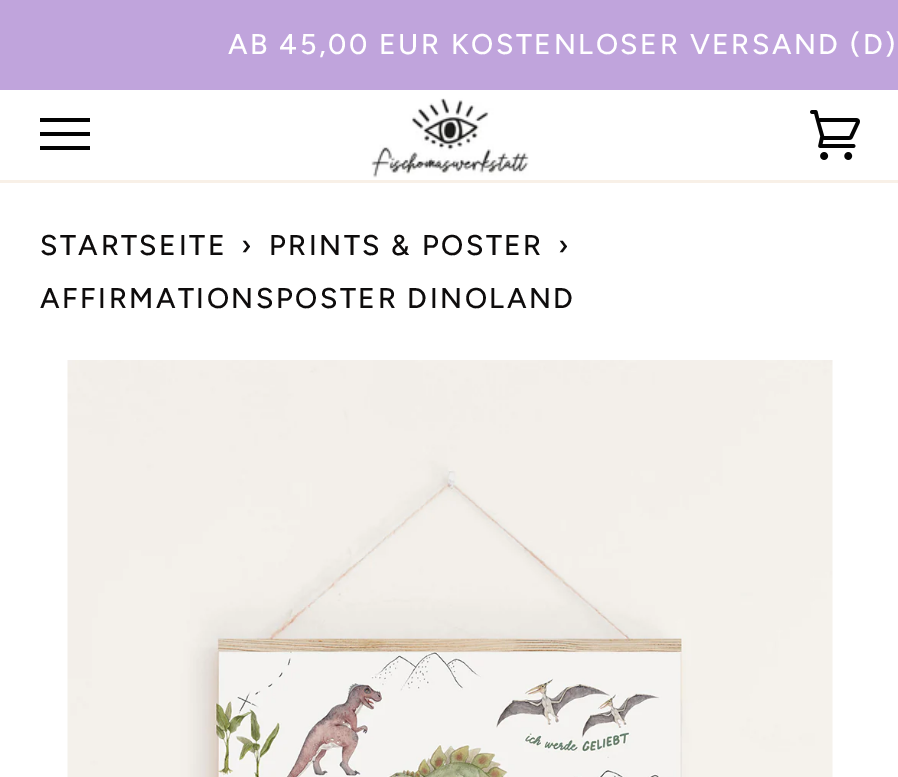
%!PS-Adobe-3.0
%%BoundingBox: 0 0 898 777
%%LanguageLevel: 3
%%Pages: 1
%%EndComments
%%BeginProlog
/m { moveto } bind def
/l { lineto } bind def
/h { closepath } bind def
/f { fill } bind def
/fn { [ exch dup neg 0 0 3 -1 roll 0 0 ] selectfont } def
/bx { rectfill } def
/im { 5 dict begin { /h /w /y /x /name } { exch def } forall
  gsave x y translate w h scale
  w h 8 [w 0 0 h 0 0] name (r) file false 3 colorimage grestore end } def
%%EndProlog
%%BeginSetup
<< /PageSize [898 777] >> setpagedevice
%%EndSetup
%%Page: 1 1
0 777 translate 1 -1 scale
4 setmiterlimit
1 setgray
0 0 898 777 bx
0.753 0.643 0.863 setrgbcolor
0 0 898 90 bx
/Figtree-Medium 28.5 fn
1 setgray
228 54 m 2.5 0 (AB 45,00 EUR KOSTENLOSER VERSAND \(D\)) ashow
0.973 0.941 0.906 setrgbcolor
0 180 898 3 bx
0.012 setgray
40 118 m 90 118 l 90 122 l 40 122 l h 40 132 m 90 132 l 90 136 l 40 136 l h 40 146 m 90 146 l 90 150 l 40 150 l h f
(image0.raw) 371 98 158 80 im
(image1.raw) 810 110 50 50 im
0.055 0.047 0.047 setrgbcolor
40 255 m 2.5 0 (STARTSEITE) ashow
241 255 m 2.5 0 (›) ashow
269 255 m 2.5 0 (PRINTS & POSTER) ashow
558 255 m 2.5 0 (›) ashow
40 308 m 2.5 0 (AFFIRMATIONSPOSTER DINOLAND) ashow
(image2.raw) 67 360 766 417 im
showpage
%%EOF
